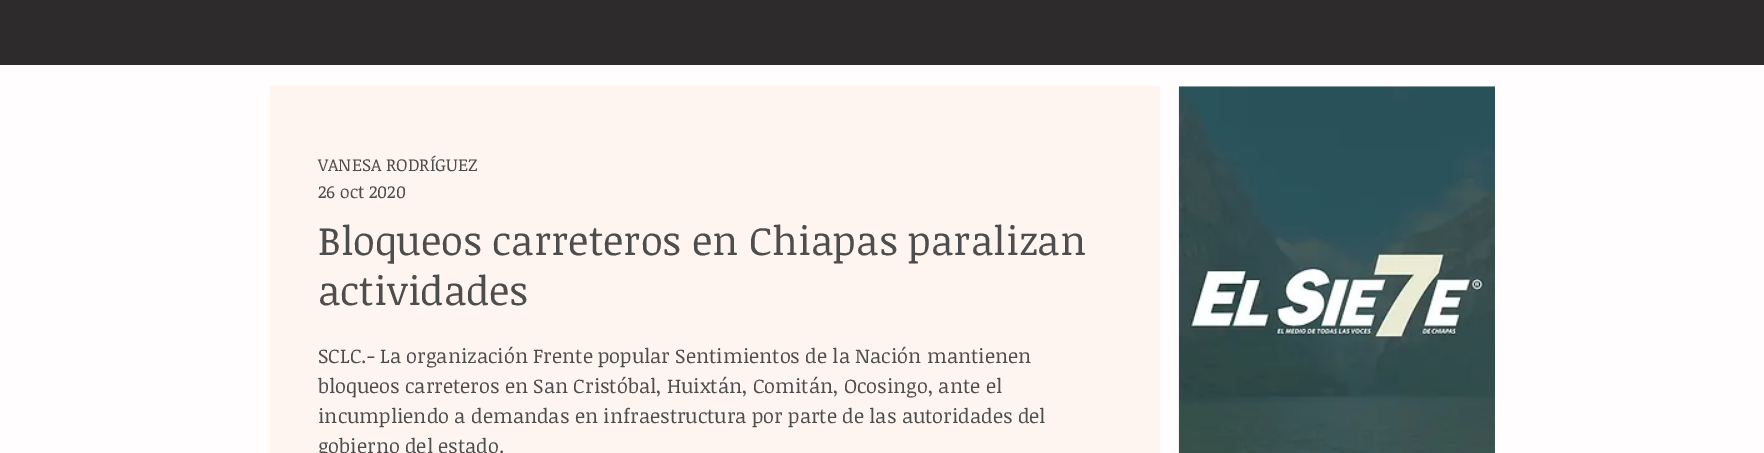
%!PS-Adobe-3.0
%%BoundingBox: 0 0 1764 453
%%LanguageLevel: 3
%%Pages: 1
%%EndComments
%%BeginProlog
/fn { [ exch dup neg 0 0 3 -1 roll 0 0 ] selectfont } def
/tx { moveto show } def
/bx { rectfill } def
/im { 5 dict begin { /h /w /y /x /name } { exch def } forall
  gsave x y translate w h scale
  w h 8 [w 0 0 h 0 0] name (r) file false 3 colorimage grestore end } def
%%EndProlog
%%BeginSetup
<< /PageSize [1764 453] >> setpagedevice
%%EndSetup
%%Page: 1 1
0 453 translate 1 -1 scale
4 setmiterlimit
1 0.992 0.992 setrgbcolor
0 0 1764 453 bx
0.176 0.169 0.169 setrgbcolor
0 0 1764 65 bx
1 0.961 0.941 setrgbcolor
270 86 890 367 bx
/NoticiaText-Regular 17.5 fn
0.306 0.302 0.302 setrgbcolor
(VANESA RODRÍGUEZ) 318 171 tx
(26 oct 2020) 318 198 tx
/NoticiaText-Regular 40 fn
(Bloqueos carreteros en Chiapas paralizan) 318 255 tx
(actividades) 318 305 tx
/NoticiaText-Regular 20 fn
(SCLC.- La organización Frente popular Sentimientos de la Nación mantienen) 318 363 tx
(bloqueos carreteros en San Cristóbal, Huixtán, Comitán, Ocosingo, ante el) 318 393 tx
(incumpliendo a demandas en infraestructura por parte de las autoridades del) 318 423 tx
(gobierno del estado.) 318 453 tx
(image0.raw) 1178 86 317 367 im
showpage
%%EOF
